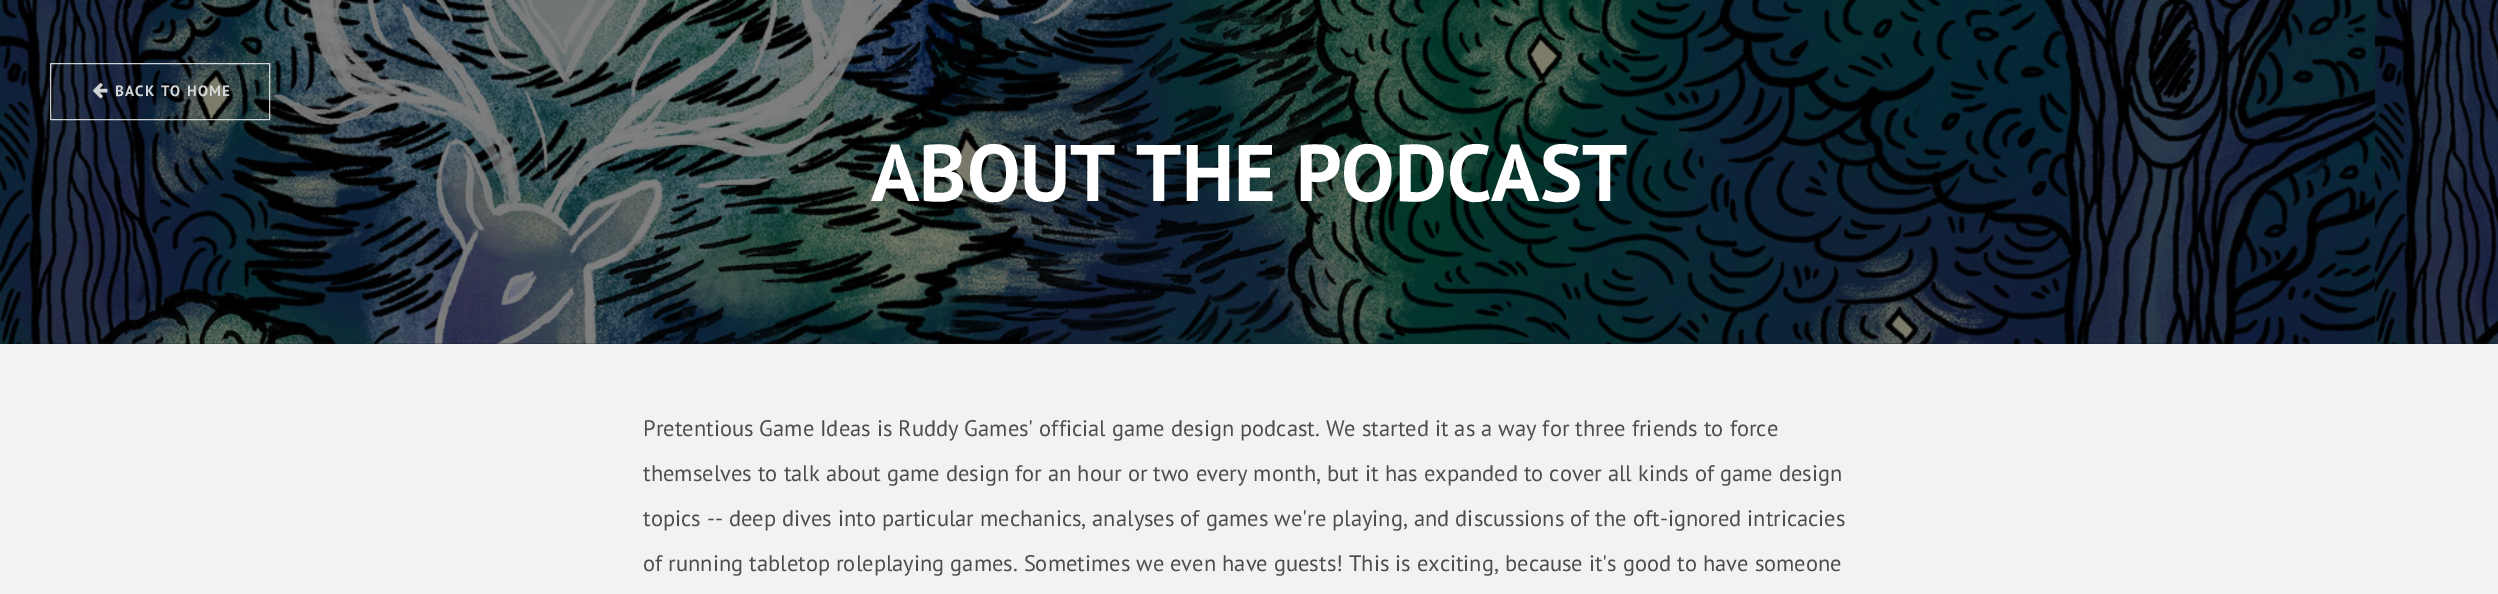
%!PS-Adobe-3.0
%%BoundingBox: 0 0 2498 594
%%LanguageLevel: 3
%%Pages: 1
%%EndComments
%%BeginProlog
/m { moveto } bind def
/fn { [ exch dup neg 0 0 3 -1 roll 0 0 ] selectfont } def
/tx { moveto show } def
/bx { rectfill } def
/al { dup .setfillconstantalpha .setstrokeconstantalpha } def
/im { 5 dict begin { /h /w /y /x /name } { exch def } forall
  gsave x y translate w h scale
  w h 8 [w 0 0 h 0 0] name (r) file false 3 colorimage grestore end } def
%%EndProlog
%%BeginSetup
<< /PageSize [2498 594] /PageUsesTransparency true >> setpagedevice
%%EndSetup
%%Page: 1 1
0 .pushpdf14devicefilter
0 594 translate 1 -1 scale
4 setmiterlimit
0.949 setgray
0 0 2498 594 bx
(image0.raw) 0 0 2498 344 im
0.8 al
1 setgray
50.5 63.5 219 56 rectstroke
1 al
(image1.raw) 93 83 15 16 im
/PTSans-Bold 15 fn
0.831 0.839 0.843 setrgbcolor
115 96 m 1.25 0 (BACK TO HOME) ashow
/PTSans-Bold 80 fn
1 setgray
(ABOUT THE PODCAST) 871 201 tx
/PTSans-Regular 22.5 fn
0.302 setgray
(Pretentious Game Ideas is Ruddy Games' official game design podcast. We started it as a way for three friends to force) 643 436 tx
(themselves to talk about game design for an hour or two every month, but it has expanded to cover all kinds of game design) 643 481 tx
(topics -- deep dives into particular mechanics, analyses of games we're playing, and discussions of the oft-ignored intricacies) 643 526 tx
(of running tabletop roleplaying games. Sometimes we even have guests! This is exciting, because it's good to have someone) 643 571 tx
.poppdf14devicefilter showpage
%%EOF
